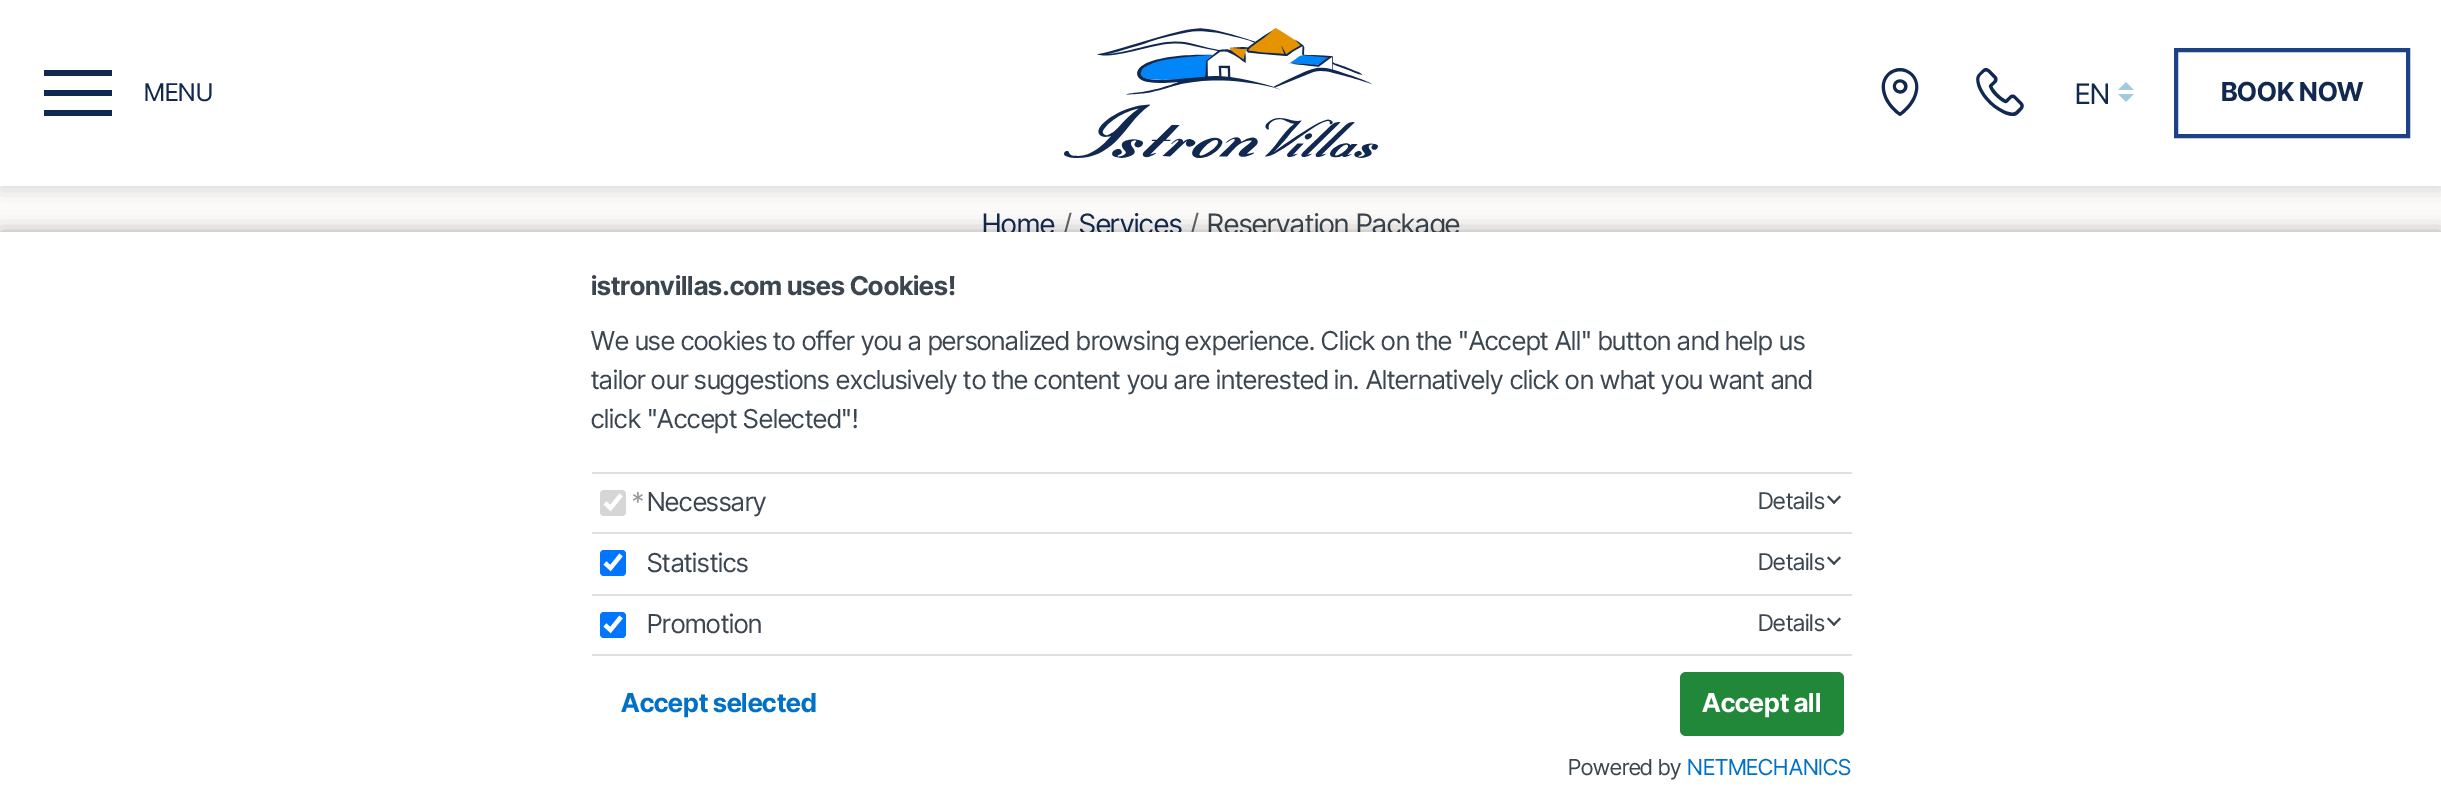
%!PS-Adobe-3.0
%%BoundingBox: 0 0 2441 800
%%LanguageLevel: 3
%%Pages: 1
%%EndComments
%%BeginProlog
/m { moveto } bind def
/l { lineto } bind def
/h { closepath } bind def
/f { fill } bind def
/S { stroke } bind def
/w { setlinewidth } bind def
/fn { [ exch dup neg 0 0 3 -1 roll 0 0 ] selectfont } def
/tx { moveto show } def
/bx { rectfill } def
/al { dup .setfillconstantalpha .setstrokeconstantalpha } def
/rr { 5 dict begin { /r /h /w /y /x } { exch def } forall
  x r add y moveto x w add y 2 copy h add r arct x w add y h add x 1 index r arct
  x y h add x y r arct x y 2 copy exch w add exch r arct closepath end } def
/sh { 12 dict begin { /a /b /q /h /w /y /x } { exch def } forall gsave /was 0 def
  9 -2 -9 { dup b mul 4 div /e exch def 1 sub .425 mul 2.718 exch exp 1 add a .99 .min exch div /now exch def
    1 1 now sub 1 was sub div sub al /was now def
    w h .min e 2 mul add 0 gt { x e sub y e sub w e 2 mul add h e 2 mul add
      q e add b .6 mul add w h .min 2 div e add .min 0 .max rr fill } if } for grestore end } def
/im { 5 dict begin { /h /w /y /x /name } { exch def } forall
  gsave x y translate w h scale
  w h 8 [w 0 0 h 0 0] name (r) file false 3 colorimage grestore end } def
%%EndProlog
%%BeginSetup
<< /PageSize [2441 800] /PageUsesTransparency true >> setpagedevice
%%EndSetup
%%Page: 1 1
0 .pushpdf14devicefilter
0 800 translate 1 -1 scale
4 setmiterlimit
0.996 0.992 0.984 setrgbcolor
0 0 2441 800 bx
0 setgray
0 4 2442 186 0 10 0.15 sh
1 setgray
0 0 2441 186 bx
0.067 0.157 0.318 setrgbcolor
44 70 68 6 bx
44 90 68 6 bx
44 110 68 6 bx
/InterTight-Regular 24.5 fn
(MENU) 144 101 tx
(image0.raw) 1064 28 314 130 im
(image1.raw) 1881 68 38 48 im
(image2.raw) 1976 68 48 48 im
0.635 0.8 0.867 setrgbcolor
2126 82 m 2118 90 l 2134 90 l h 2126 102 m 2118 94 l 2134 94 l h f
/InterTight-Regular 28 fn
0.067 0.157 0.318 setrgbcolor
(EN) 2075 104 tx
0.11 0.255 0.518 setrgbcolor
4 w
2176 50 232 86 rectstroke
/InterTight-Bold 26.25 fn
0.067 0.157 0.318 setrgbcolor
(BOOK NOW) 2221 101 tx
/InterTight-Regular 28 fn
(Home) 982 234 tx
0.4 setgray
(/) 1063 234 tx
0.067 0.157 0.318 setrgbcolor
(Services) 1079 234 tx
0.4 setgray
(/) 1190 234 tx
0.235 0.275 0.314 setrgbcolor
(Reservation Package) 1207 234 tx
0 setgray
0 232 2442 568 0 10 0.33 sh
1 setgray
0 232 2441 568 bx
/InterTight-Bold 26 fn
0.235 0.275 0.314 setrgbcolor
(istronvillas.com uses Cookies!) 591 295 tx
/InterTight-Regular 26 fn
(We use cookies to offer you a personalized browsing experience. Click on the "Accept All" button and help us) 591 350 tx
(tailor our suggestions exclusively to the content you are interested in. Alternatively click on what you want and) 591 389 tx
(click "Accept Selected"!) 591 428 tx
0.878 setgray
592 472 1260 2 bx
0.839 setgray
600 490 26 26 4 rr f
1 setgray
4.2 w
605 503 m 610.5 508 l 621 495 l S
0.6 setgray
(*) 632 511 tx
0.235 0.275 0.314 setrgbcolor
(Necessary) 647 511 tx
/InterTight-Regular 23 fn
(Details) 1758 509 tx
1839.5 495.5 m 1841 497 l 1834 504 l 1832.5 502.5 l h f
1828.5 495.5 m 1835.5 502.5 l 1834 504 l 1827 497 l h f
0.878 setgray
592 532 1260 2 bx
0 0.459 1 setrgbcolor
600 550 26 26 4 rr f
1 setgray
605 563 m 610.5 568 l 621 555 l S
/InterTight-Regular 26 fn
0.235 0.275 0.314 setrgbcolor
(Statistics) 647 572 tx
/InterTight-Regular 23 fn
(Details) 1758 570 tx
1839.5 556.5 m 1841 558 l 1834 565 l 1832.5 563.5 l h f
1828.5 556.5 m 1835.5 563.5 l 1834 565 l 1827 558 l h f
0.878 setgray
592 594 1260 2 bx
0 0.459 1 setrgbcolor
600 612 26 26 4 rr f
1 setgray
605 625 m 610.5 630 l 621 617 l S
/InterTight-Regular 26 fn
0.235 0.275 0.314 setrgbcolor
(Promotion) 647 633 tx
/InterTight-Regular 23 fn
(Details) 1758 631 tx
1839.5 617.5 m 1841 619 l 1834 626 l 1832.5 624.5 l h f
1828.5 617.5 m 1835.5 624.5 l 1834 626 l 1827 619 l h f
0.878 setgray
592 654 1260 2 bx
/InterTight-Bold 26 fn
0 0.443 0.78 setrgbcolor
(Accept selected) 621 712 tx
0.129 0.529 0.224 setrgbcolor
1680 672 164 64 6 rr f
1 setgray
(Accept all) 1702 712 tx
/InterTight-Regular 22 fn
0.235 0.275 0.314 setrgbcolor
(Powered by) 1568 775 tx
0 0.443 0.78 setrgbcolor
(NETMECHANICS) 1687 775 tx
.poppdf14devicefilter showpage
%%EOF
